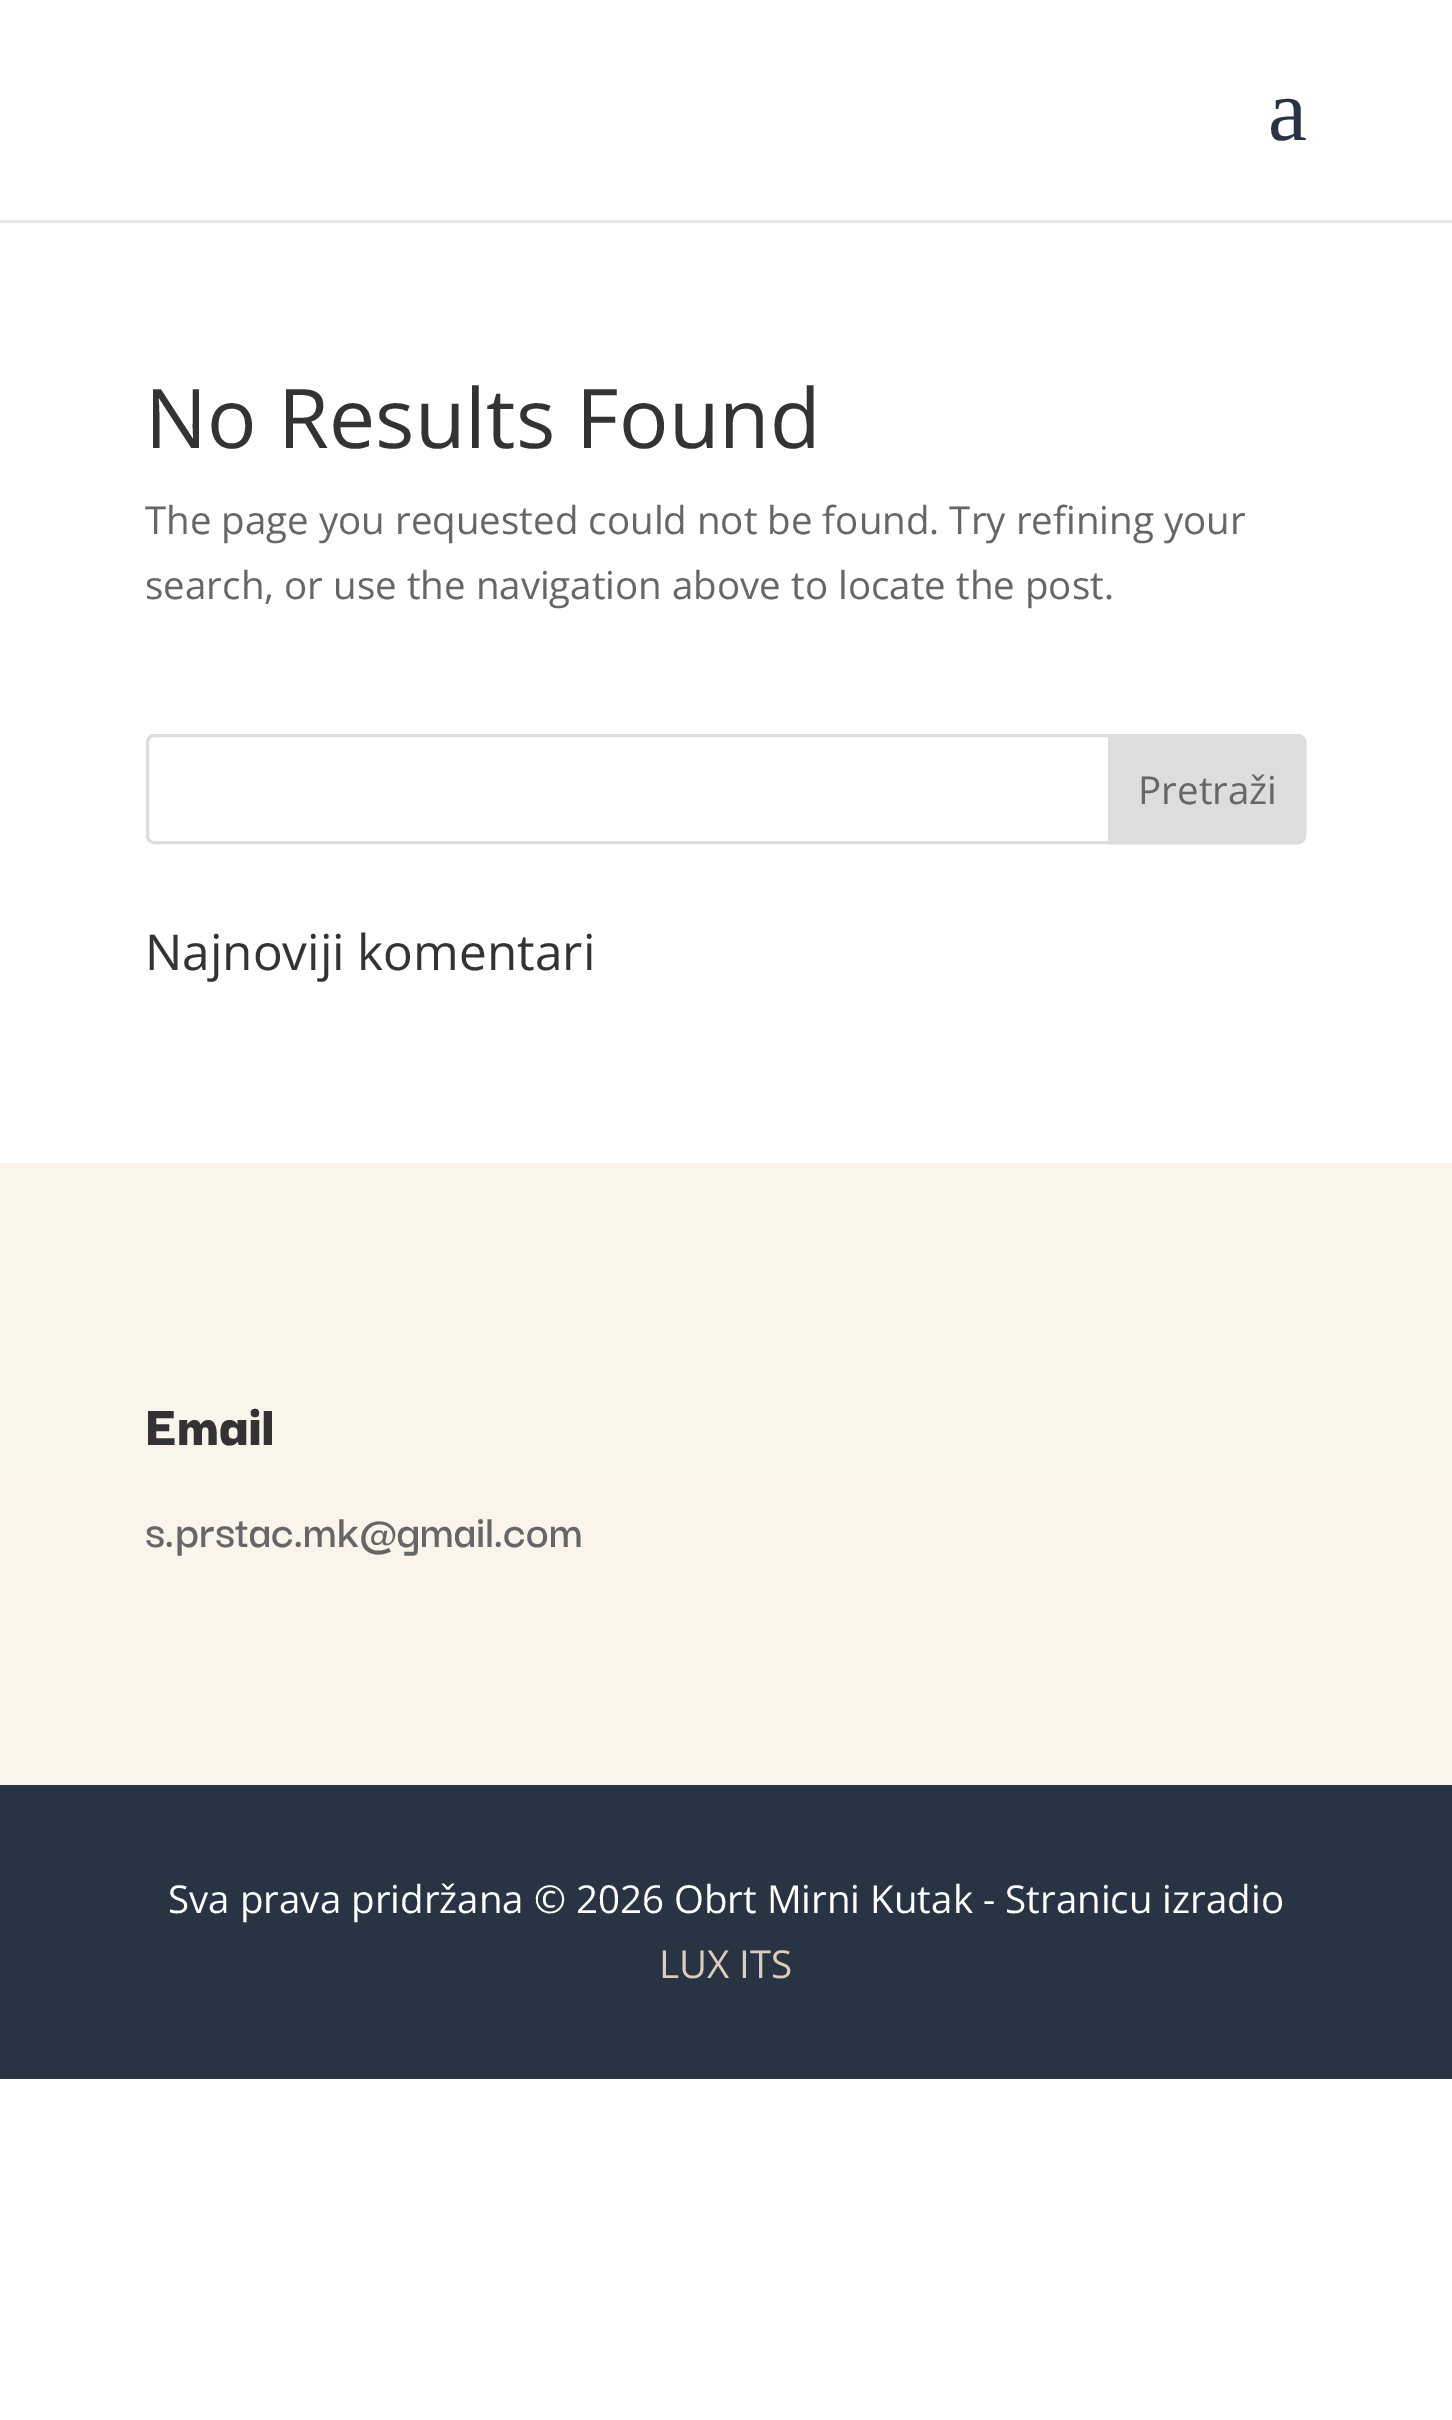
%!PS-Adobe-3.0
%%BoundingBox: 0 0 1452 2420
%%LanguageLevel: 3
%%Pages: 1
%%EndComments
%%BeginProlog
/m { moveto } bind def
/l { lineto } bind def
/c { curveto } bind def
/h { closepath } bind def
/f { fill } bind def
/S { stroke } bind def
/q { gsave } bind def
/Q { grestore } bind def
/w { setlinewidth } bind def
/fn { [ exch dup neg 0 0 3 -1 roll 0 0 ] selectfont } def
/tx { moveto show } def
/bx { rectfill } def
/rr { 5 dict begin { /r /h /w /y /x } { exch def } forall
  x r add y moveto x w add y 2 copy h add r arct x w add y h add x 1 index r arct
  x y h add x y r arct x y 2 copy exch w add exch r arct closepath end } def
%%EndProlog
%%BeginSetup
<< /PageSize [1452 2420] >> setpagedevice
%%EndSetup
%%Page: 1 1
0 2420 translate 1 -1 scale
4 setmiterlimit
1 setgray
0 0 1452 2420 bx
0.902 setgray
0 220 1452 3 bx
/LiberationSerif-Regular 88 fn
0.157 0.204 0.267 setrgbcolor
(a) 1268 140 tx
/OpenSans-Regular 82.5 fn
0.2 setgray
(No Results Found) 145 448 tx
/OpenSans-Regular 38.5 fn
0.4 setgray
(The page you requested could not be found. Try refining your) 145 534 tx
(search, or use the navigation above to locate the post.) 145 599 tx
0.867 setgray
3 w
147.5 735.5 1157 107 6.5 rr S
1109.5 735.5 m 1298 735.5 l 1301.5 735.5 1304.5 738.5 1304.5 742 c 1304.5 836 l 1304.5 839.5 1301.5 842.5 1298 842.5 c 1109.5 842.5 l h q f Q
S
0.4 setgray
(Pretraži) 1138 804 tx
/OpenSans-Regular 49.5 fn
0.2 setgray
(Najnoviji komentari) 145 970 tx
q 0 1163 m 1452 1163 l 1452 1785 l 0 1785 l h clip newpath
<< /ShadingType 2 /ColorSpace /DeviceRGB /Coords [726 1163 726 1785] /Extend [true true] /Function << /FunctionType 2 /Domain [0 1] /C0 [0.98 0.961 0.925] /C1 [0.98 0.957 0.918] /N 1 >> >> shfill Q
/DarkerGrotesque-Light 60.5 fn
(Email) 145 1445 tx
/DarkerGrotesque-SemiBold 49.5 fn
0.4 setgray
(s.prstac.mk@gmail.com) 145 1547 tx
0.157 0.204 0.267 setrgbcolor
0 1785 1452 294 bx
/OpenSans-Regular 38.5 fn
1 setgray
(Sva prava pridržana © 2026 Obrt Mirni Kutak - Stranicu izradio) 168 1913 tx
0.867 0.8 0.722 setrgbcolor
(LUX ITS) 659 1978 tx
showpage
%%EOF
